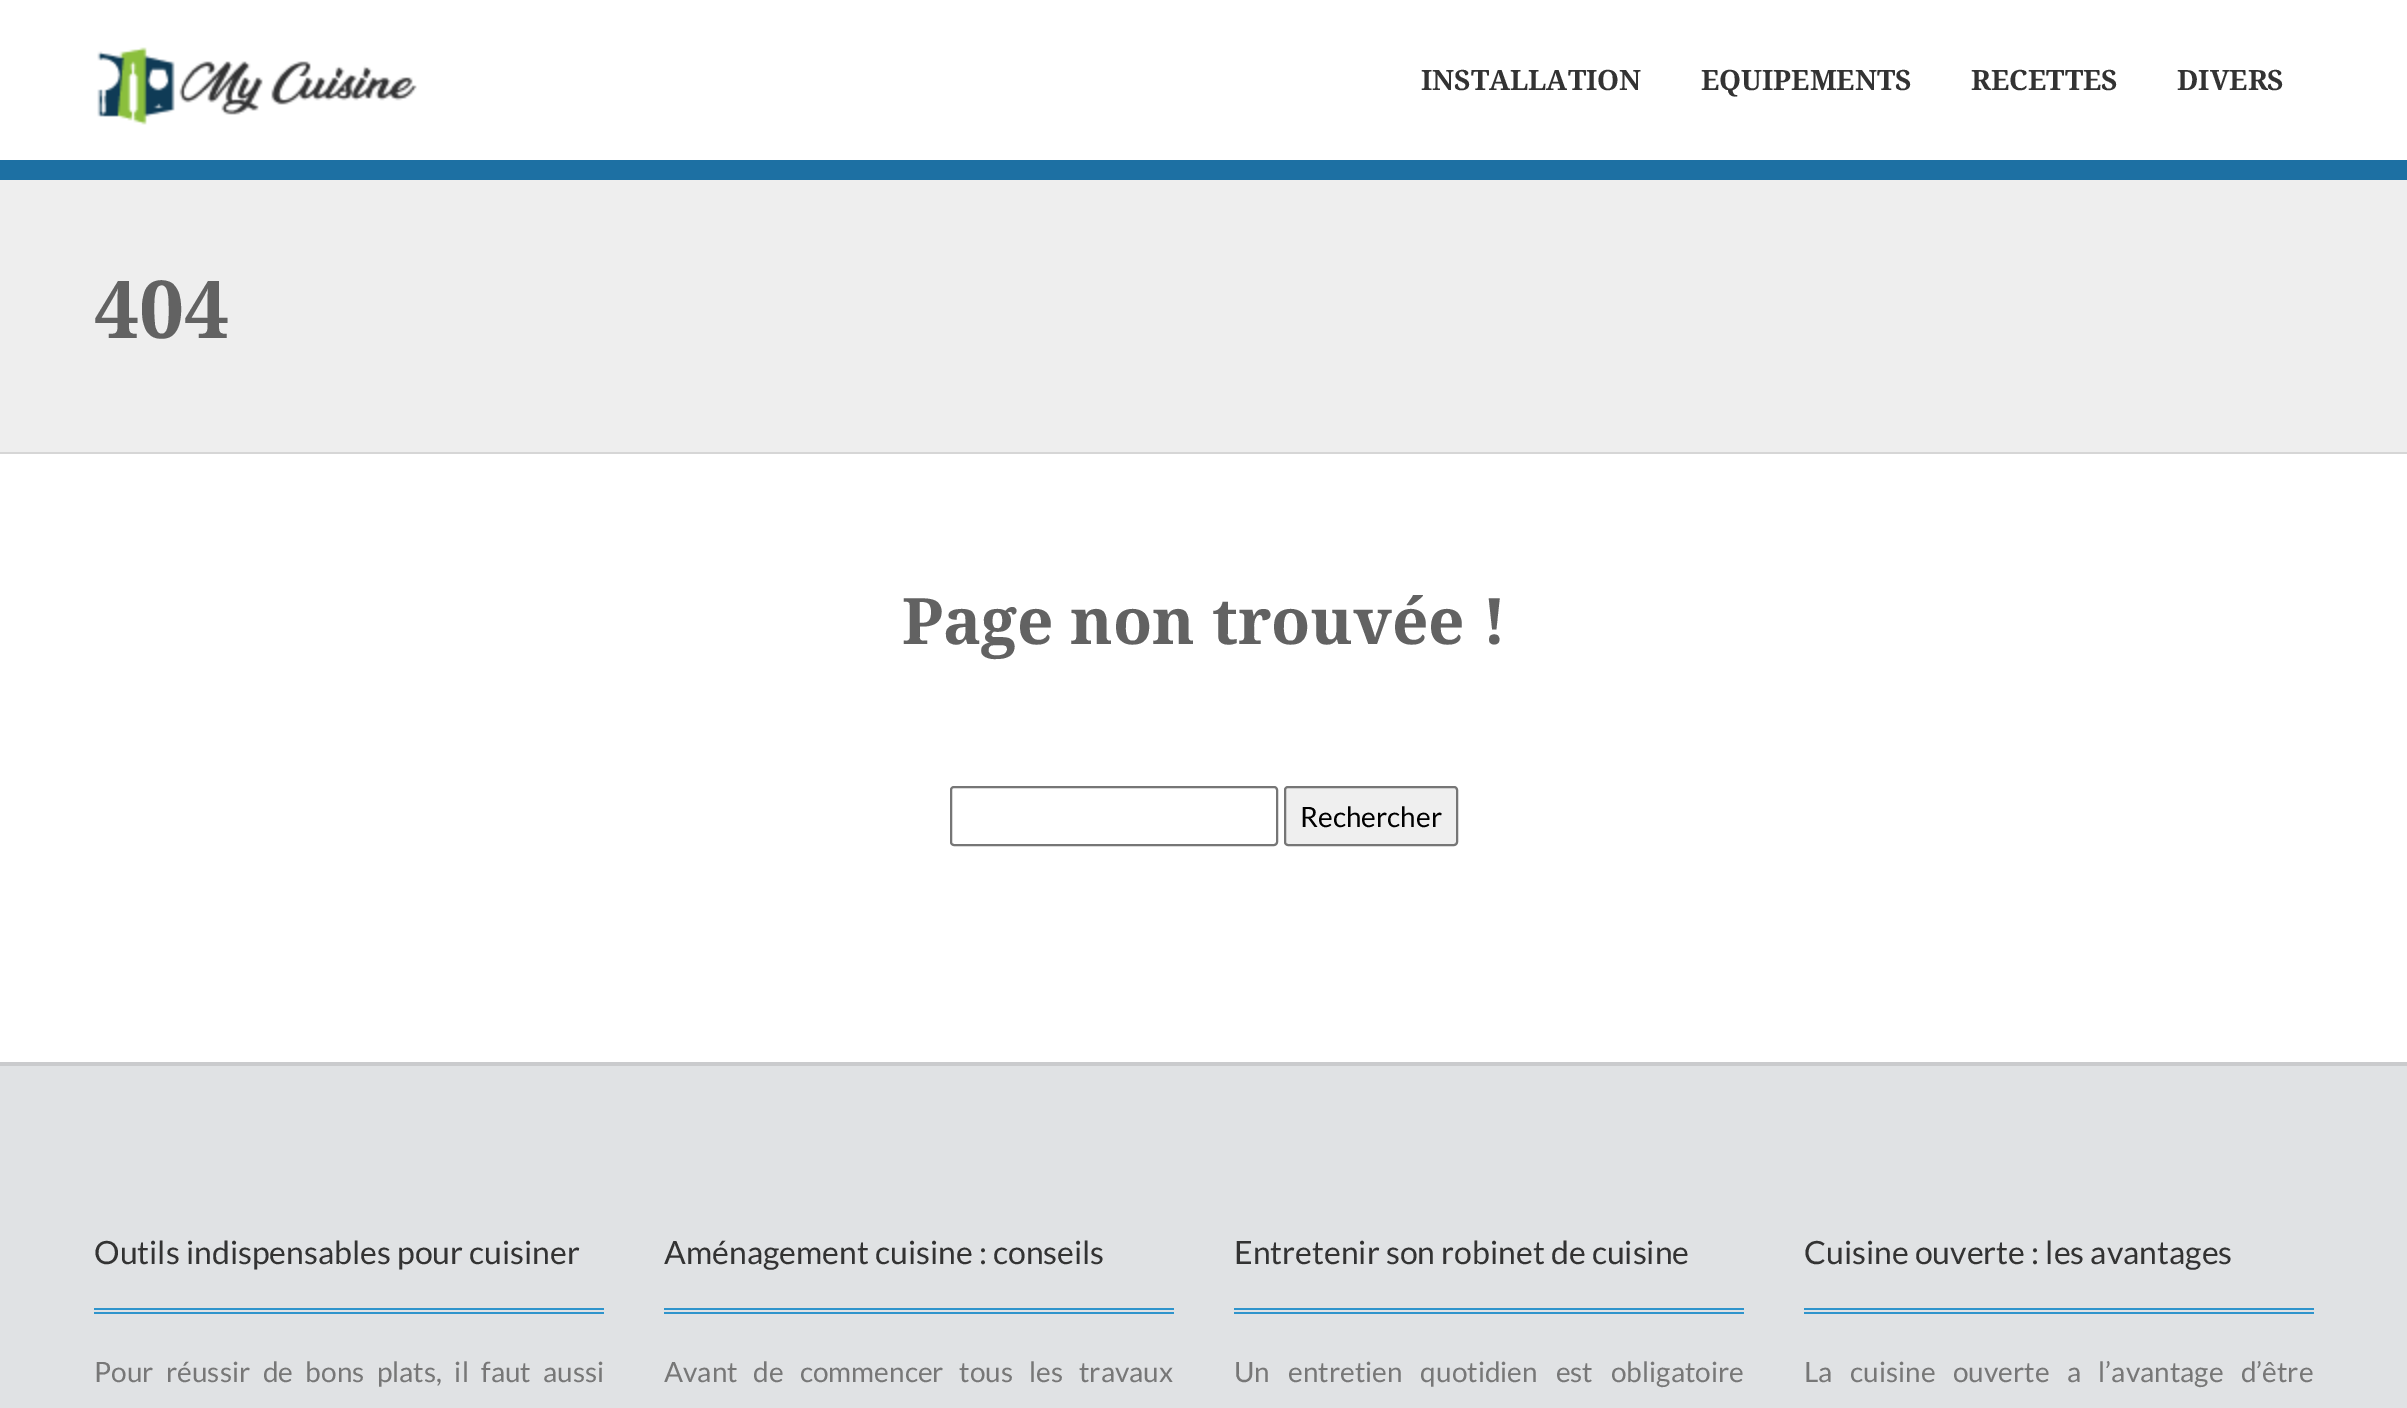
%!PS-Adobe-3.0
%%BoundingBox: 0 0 2407 1408
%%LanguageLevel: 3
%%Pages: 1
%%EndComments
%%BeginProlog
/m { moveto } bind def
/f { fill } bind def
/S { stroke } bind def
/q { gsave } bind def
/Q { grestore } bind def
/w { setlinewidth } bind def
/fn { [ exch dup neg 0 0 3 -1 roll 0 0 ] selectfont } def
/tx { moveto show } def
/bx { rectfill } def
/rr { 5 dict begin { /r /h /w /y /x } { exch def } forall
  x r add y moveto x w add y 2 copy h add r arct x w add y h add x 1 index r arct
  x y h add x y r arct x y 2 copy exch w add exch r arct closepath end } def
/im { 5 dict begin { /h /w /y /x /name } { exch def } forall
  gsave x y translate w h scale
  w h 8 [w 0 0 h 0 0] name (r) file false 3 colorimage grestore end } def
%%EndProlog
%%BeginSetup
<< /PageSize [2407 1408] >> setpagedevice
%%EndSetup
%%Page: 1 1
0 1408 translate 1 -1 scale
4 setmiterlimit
1 setgray
0 0 2407 1408 bx
(image0.raw) 97 47 320 78 im
/NotoSerif-Bold 28 fn
0.2 setgray
(INSTALLATION) 1421 90 tx
(EQUIPEMENTS) 1701 90 tx
(RECETTES) 1971 90 tx
(DIVERS) 2177 90 tx
0.933 setgray
0 180 2407 272 bx
0.114 0.439 0.639 setrgbcolor
0 160 2407 20 bx
0.839 setgray
0 452 2407 2 bx
/NotoSerif-Bold 80 fn
0.384 setgray
(404) 94 338 tx
/NotoSerif-Bold 64 fn
(Page non trouvée !) 902 644 tx
0.463 setgray
2 w
951 787 326 58 3 rr S
0.937 setgray
1285 787 172 58 3 rr q f Q
0.463 setgray
S
/Lato-Regular 28 fn
0 setgray
(Rechercher) 1300 827 tx
0.878 0.886 0.894 setrgbcolor
0 1066 2407 342 bx
0.792 0.796 0.804 setrgbcolor
0 1062 2407 4 bx
0.184 0.58 0.8 setrgbcolor
94 1308 510 2 bx
94 1312 510 2 bx
/Lato-Regular 32 fn
0.2 setgray
(Outils indispensables pour cuisiner) 94 1264 tx
/Lato-Regular 28 fn
0.467 setgray
94 1382 m 7 0 32 (Pour réussir de bons plats, il faut aussi) widthshow
0.184 0.58 0.8 setrgbcolor
664 1308 510 2 bx
664 1312 510 2 bx
/Lato-Regular 32 fn
0.2 setgray
(Aménagement cuisine : conseils) 664 1264 tx
/Lato-Regular 28 fn
0.467 setgray
664 1382 m 10.5 0 32 (Avant de commencer tous les travaux) widthshow
0.184 0.58 0.8 setrgbcolor
1234 1308 510 2 bx
1234 1312 510 2 bx
/Lato-Regular 32 fn
0.2 setgray
(Entretenir son robinet de cuisine) 1234 1264 tx
/Lato-Regular 28 fn
0.467 setgray
1234 1382 m 12.5 0 32 (Un entretien quotidien est obligatoire) widthshow
0.184 0.58 0.8 setrgbcolor
1804 1308 510 2 bx
1804 1312 510 2 bx
/Lato-Regular 32 fn
0.2 setgray
(Cuisine ouverte : les avantages) 1804 1264 tx
/Lato-Regular 28 fn
0.467 setgray
1804 1382 m 12 0 32 (La cuisine ouverte a l’avantage d’être) widthshow
showpage
%%EOF
